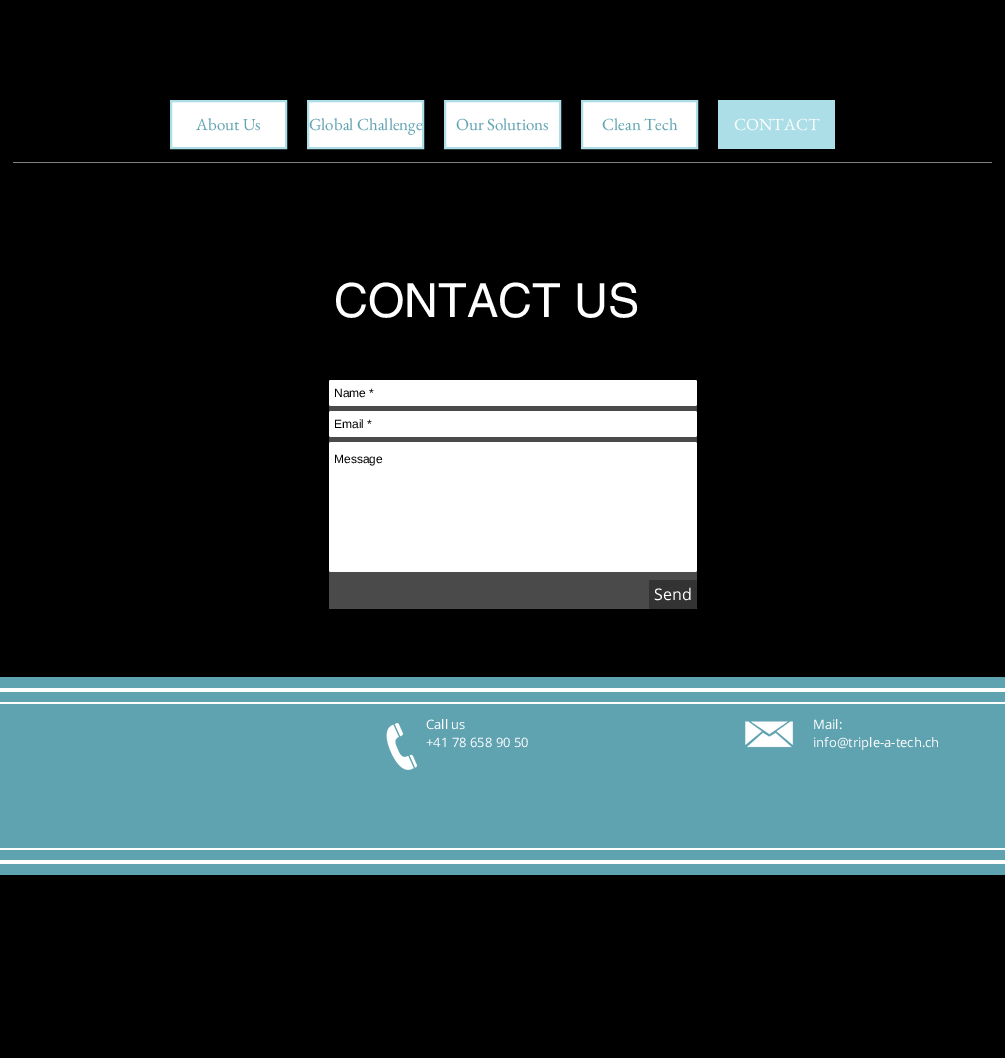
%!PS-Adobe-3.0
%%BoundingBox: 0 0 1005 1058
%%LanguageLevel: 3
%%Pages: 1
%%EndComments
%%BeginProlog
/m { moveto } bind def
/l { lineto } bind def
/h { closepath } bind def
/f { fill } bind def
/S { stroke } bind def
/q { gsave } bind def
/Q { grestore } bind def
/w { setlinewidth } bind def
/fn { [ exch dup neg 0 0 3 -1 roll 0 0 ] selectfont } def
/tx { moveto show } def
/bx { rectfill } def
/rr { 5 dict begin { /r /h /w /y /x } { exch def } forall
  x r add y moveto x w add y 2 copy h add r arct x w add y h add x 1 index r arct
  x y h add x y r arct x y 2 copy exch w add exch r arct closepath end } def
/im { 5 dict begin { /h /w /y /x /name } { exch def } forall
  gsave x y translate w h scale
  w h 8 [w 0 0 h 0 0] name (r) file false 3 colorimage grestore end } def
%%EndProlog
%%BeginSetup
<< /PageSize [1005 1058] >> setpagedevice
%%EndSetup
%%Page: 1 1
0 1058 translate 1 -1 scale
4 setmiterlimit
0 setgray
0 0 1005 1058 bx
1 setgray
171 101 m 286 101 l 286 148 l 171 148 l h q f Q
0.675 0.871 0.91 setrgbcolor
2 w
S
/EBGaramond-Regular 17 fn
0.373 0.635 0.69 setrgbcolor
(About Us) 196 130 tx
1 setgray
308 101 m 423 101 l 423 148 l 308 148 l h q f Q
0.675 0.871 0.91 setrgbcolor
S
0.373 0.635 0.69 setrgbcolor
(Global Challenge) 309 130 tx
1 setgray
445 101 m 560 101 l 560 148 l 445 148 l h q f Q
0.675 0.871 0.91 setrgbcolor
S
0.373 0.635 0.69 setrgbcolor
(Our Solutions) 456 130 tx
1 setgray
582 101 m 697 101 l 697 148 l 582 148 l h q f Q
0.675 0.871 0.91 setrgbcolor
S
0.373 0.635 0.69 setrgbcolor
(Clean Tech) 602 130 tx
0.675 0.871 0.91 setrgbcolor
718 100 117 49 bx
1 setgray
(CONTACT) 734 130 tx
0.502 setgray
13 162 979 1 bx
/helvetica-Regular 47 fn
1 setgray
(CONTACT US) 334 317 tx
0.29 setgray
329 380 368 229 bx
1 setgray
329 380 368 26 2 rr f
/LiberationSans-Regular 12 fn
0 setgray
(Name *) 334 397 tx
1 setgray
329 411 368 26 2 rr f
0 setgray
(Email *) 334 428 tx
1 setgray
329 442 368 130 2 rr f
0 setgray
(Message) 334 463 tx
0.2 setgray
649 580 48 29 2 rr f
/OpenSans-Regular 16 fn
1 setgray
(Send) 654 600 tx
0.373 0.635 0.69 setrgbcolor
0 677 1005 198 bx
1 setgray
0 688 1005 4 bx
0 860 1005 4 bx
0 702 1005 2 bx
0 848 1005 2 bx
(image0.raw) 386 723 32 47 im
/OpenSans-Regular 13 fn
(Call us) 426 729 tx
(+41 78 658 90 50) 426 747 tx
(image1.raw) 745 721 49 27 im
(Mail:) 813 729 tx
(info@triple-a-tech.ch) 813 747 tx
showpage
%%EOF
